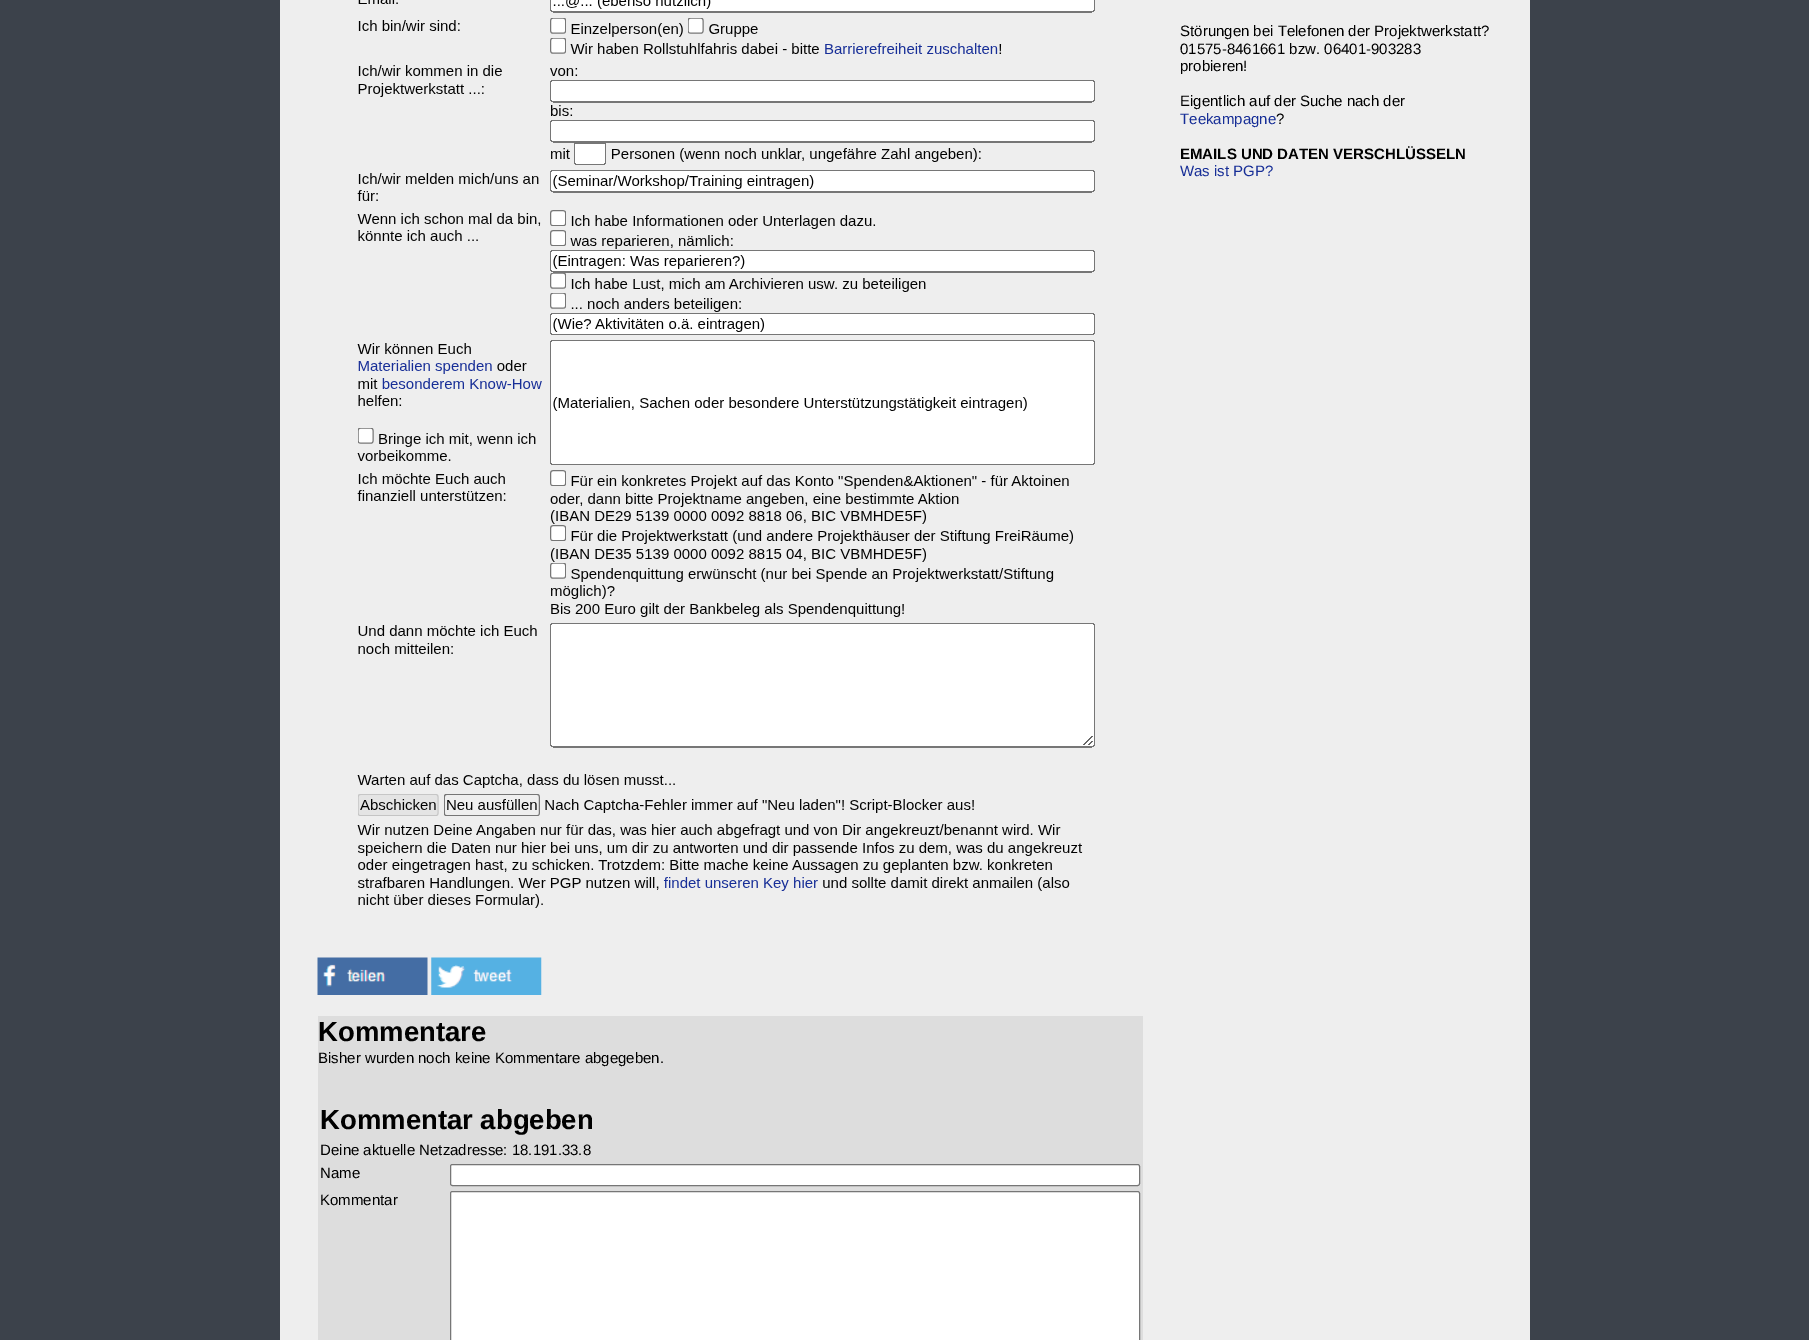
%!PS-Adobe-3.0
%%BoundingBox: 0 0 1809 1340
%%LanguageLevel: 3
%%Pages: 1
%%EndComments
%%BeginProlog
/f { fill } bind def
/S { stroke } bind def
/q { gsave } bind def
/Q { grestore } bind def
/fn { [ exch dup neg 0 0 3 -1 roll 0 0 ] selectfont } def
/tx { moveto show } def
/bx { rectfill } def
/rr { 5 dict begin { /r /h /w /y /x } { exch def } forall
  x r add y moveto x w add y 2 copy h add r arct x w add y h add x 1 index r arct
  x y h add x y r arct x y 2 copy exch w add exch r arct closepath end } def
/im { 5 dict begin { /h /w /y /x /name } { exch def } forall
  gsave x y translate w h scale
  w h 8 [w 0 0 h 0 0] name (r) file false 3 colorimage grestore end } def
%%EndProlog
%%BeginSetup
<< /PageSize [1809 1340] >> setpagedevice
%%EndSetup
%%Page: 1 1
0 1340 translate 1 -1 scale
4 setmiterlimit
0.235 0.259 0.294 setrgbcolor
0 0 1809 1340 bx
0.933 setgray
280 0 1250 1340 bx
/LiberationSans-Regular 15 fn
0 setgray
(Störungen bei Telefonen der Projektwerkstatt?) 1180 36 tx
(01575-8461661 bzw. 06401-903283) 1180 54 tx
(probieren!) 1180 71 tx
(Eigentlich auf der Suche nach der) 1180 106 tx
0.09 0.18 0.592 setrgbcolor
(Teekampagne) 1180 124 tx
0 setgray
(?) 1276 124 tx
/LiberationSans-Bold 15 fn
(EMAILS UND DATEN VERSCHLÜSSELN) 1180 159 tx
/LiberationSans-Regular 15 fn
0.09 0.18 0.592 setrgbcolor
(Was ist PGP?) 1180 176 tx
(image0.raw) 357 0 738 908 im
(image1.raw) 317 957 111 38 im
(image2.raw) 431 957 111 38 im
0.867 setgray
318 1016 825 324 bx
/LiberationSans-Bold 27.5 fn
0 setgray
(Kommentare) 318 1041 tx
/LiberationSans-Regular 15 fn
(Bisher wurden noch keine Kommentare abgegeben.) 318 1063 tx
/LiberationSans-Bold 27.5 fn
(Kommentar abgeben) 320 1129 tx
/LiberationSans-Regular 15 fn
(Deine aktuelle Netzadresse: 18.191.33.8) 320 1155 tx
(Name) 320 1178 tx
1 setgray
450.5 1164.5 689 21 2 rr q f Q
0.463 setgray
S
0 setgray
(Kommentar) 320 1205 tx
1 setgray
450.5 1191.5 689 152 2 rr q f Q
0.463 setgray
S
showpage
%%EOF
